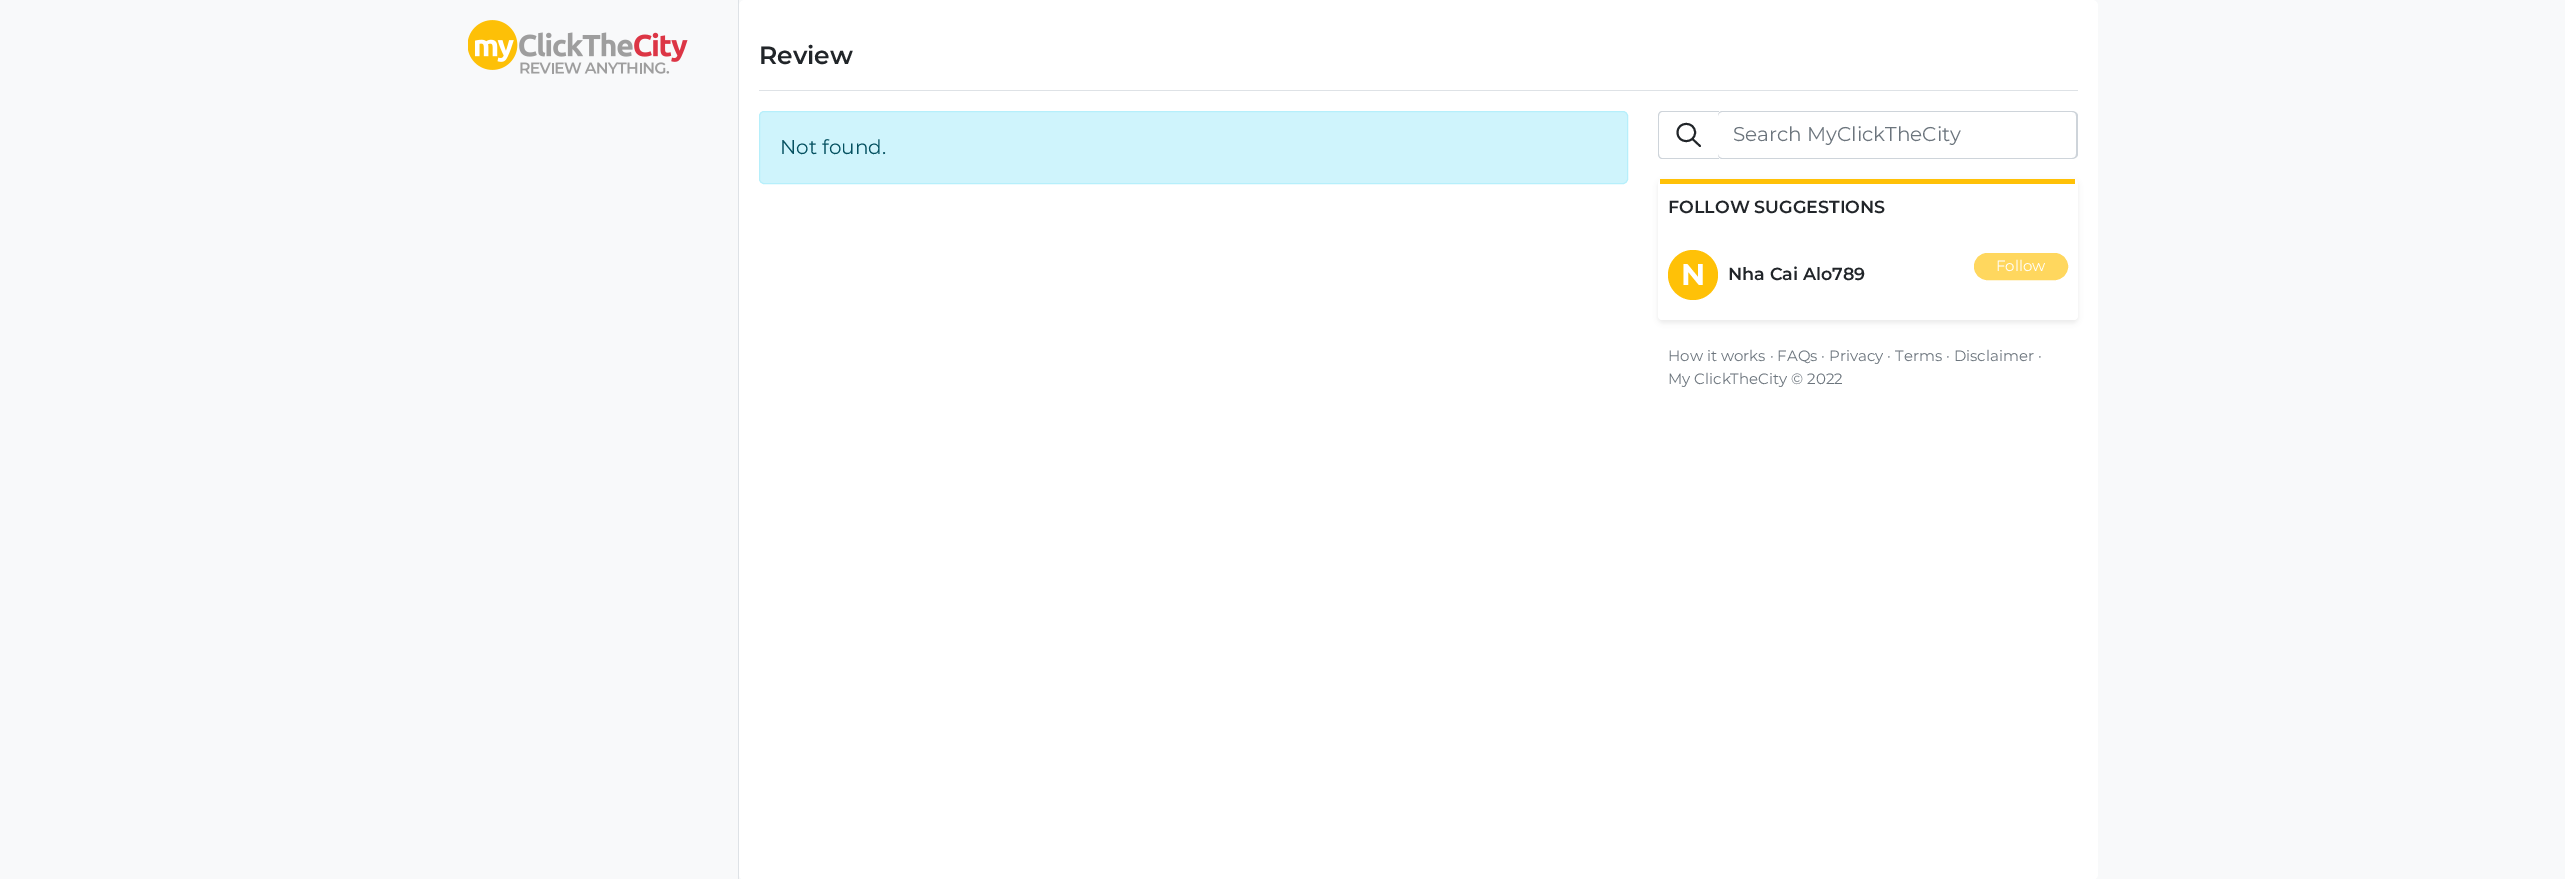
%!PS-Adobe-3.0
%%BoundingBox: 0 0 2565 879
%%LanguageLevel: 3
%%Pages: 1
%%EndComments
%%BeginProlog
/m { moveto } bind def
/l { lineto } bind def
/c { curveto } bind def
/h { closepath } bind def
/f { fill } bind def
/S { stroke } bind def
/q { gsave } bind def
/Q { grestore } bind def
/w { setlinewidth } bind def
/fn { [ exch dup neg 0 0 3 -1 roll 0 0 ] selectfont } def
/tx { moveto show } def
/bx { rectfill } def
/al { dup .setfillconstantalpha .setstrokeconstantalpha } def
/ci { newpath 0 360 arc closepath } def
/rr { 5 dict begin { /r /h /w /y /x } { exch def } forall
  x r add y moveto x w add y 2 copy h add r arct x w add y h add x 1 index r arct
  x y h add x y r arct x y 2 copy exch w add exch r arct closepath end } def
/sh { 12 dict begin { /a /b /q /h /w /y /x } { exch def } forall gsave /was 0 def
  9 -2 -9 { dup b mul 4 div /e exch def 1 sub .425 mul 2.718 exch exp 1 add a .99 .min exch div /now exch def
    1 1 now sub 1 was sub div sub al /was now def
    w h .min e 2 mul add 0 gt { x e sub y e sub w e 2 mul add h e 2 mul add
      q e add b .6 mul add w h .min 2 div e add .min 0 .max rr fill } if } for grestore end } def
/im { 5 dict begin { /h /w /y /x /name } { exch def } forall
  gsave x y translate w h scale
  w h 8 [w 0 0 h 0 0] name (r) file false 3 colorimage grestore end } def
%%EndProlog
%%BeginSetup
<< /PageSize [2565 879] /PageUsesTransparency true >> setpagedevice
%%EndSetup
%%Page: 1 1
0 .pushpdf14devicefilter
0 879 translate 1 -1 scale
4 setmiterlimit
0.973 0.976 0.98 setrgbcolor
0 0 2565 879 bx
0.871 0.886 0.902 setrgbcolor
738 0 1 879 bx
(image0.raw) 468 20 220 54 im
1 setgray
739 0 1359 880 6 rr f
0.871 0.886 0.902 setrgbcolor
759 90 1319 1 bx
/Montserrat-SemiBold 25 fn
0.129 0.145 0.161 setrgbcolor
(Review) 759 64 tx
0.812 0.957 0.988 setrgbcolor
759.5 111.5 868 72 4.5 rr q f Q
0.714 0.937 0.984 setrgbcolor
S
/Montserrat-Regular 20 fn
0.02 0.318 0.376 setrgbcolor
(Not found.) 780 154 tx
0.808 0.831 0.855 setrgbcolor
1662 111 m 1719 111 l 1719 159 l 1662 159 l 1660 159 1658 157 1658 154 c 1658 116 l 1658 113 1660 111 1662 111 c h 1662 112 m 1719 112 l 1719 158 l 1662 158 l 1660 158 1659 156 1659 154 c 1659 116 l 1659 114 1660 112 1662 112 c h eofill
0.129 0.145 0.161 setrgbcolor
1.9 w
1 setlinecap
1 setlinejoin
1700 146 m 1692.5 139 l 1695 132.5 m 1695 144 1677.5 144 1677.5 132.5 c 1677.5 121 1695 121 1695 132.5 c h S
0.808 0.831 0.855 setrgbcolor
1722 111 m 2072 111 l 2075 111 2078 113 2078 116 c 2078 154 l 2078 157 2075 159 2072 159 c 1722 159 l 1720 159 1718 157 1718 154 c 1718 116 l 1718 113 1720 111 1722 111 c h 1722 112 m 2072 112 l 2075 112 2076 114 2076 116 c 2076 154 l 2076 156 2075 158 2072 158 c 1722 158 l 1720 158 1718 156 1718 154 c 1718 116 l 1718 114 1720 112 1722 112 c h eofill
0.424 0.459 0.49 setrgbcolor
(Search MyClickTheCity) 1733 141 tx
0 setgray
1658 181 420 142 5 2.5 0.07 sh
1 setgray
1658 179 420 141 5 rr f
1 0.757 0.027 setrgbcolor
1660 179 415 5 bx
/Montserrat-SemiBold 17.5 fn
0.129 0.145 0.161 setrgbcolor
(FOLLOW SUGGESTIONS) 1668 213 tx
1 setgray
1658 230 m 2078 230 l 2078 316 l 2078 318 2076 320 2074 320 c 1662 320 l 1660 320 1658 318 1658 316 c h f
1 0.757 0.027 setrgbcolor
1693 275 25 ci f
/Montserrat-Bold 30 fn
1 setgray
(N) 1681 285 tx
/Montserrat-SemiBold 17.5 fn
0.129 0.145 0.161 setrgbcolor
(Nha Cai Alo789) 1728 280 tx
1 0.843 0.369 setrgbcolor
1974.5 253.5 93 26 13 rr q f Q
1 w
0 setlinecap
0 setlinejoin
S
/Montserrat-Regular 15 fn
1 setgray
(Follow) 1996 271 tx
0.424 0.459 0.49 setrgbcolor
(How it works · FAQs · Privacy · Terms · Disclaimer ·) 1668 361 tx
(My ClickTheCity © 2022) 1668 384 tx
.poppdf14devicefilter showpage
%%EOF
